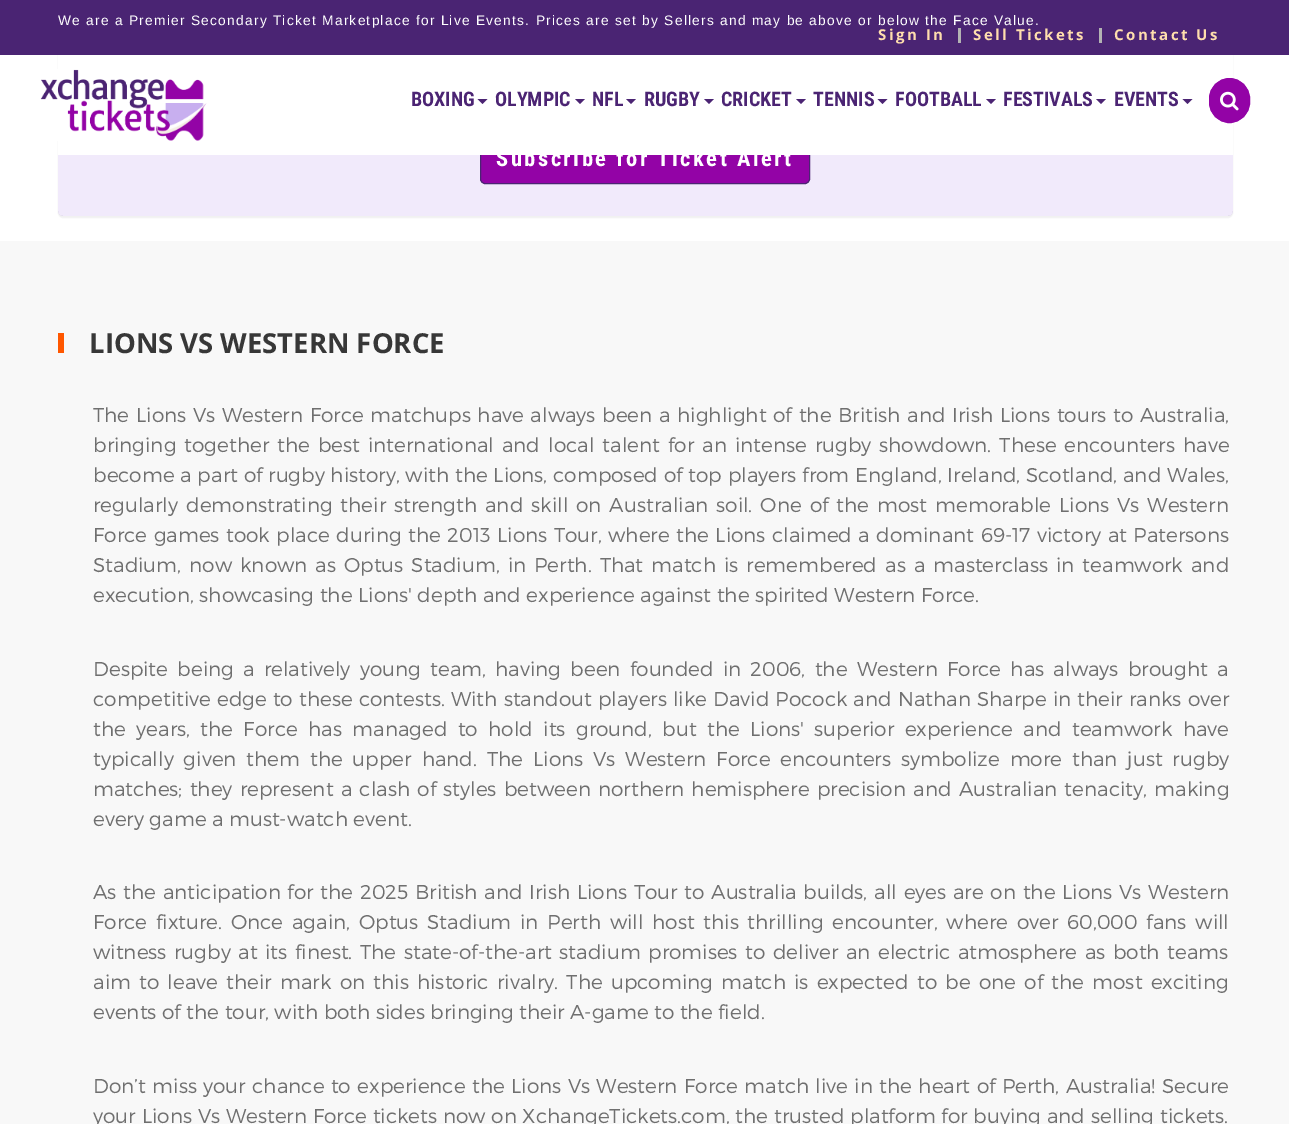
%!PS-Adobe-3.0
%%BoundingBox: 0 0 1289 1124
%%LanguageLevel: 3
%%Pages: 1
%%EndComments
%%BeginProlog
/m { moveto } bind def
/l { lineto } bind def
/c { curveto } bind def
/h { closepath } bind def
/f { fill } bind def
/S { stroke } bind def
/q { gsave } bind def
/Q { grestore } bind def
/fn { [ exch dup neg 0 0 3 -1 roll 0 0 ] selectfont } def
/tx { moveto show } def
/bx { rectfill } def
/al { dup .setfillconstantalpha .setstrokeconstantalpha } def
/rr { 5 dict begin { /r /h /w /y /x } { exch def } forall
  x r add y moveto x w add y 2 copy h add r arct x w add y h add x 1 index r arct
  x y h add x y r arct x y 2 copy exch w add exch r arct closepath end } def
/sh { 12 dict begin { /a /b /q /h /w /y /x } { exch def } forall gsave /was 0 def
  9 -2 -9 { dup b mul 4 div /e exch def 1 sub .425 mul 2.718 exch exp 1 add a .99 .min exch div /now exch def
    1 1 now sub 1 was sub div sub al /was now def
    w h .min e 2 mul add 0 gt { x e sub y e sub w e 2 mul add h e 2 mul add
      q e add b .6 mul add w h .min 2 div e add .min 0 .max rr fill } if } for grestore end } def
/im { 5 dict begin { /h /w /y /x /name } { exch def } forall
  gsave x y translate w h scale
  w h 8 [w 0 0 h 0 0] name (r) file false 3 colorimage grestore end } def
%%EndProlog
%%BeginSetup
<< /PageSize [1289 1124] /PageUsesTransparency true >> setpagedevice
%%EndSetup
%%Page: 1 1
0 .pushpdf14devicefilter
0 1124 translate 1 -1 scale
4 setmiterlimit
1 setgray
0 0 1289 1124 bx
q
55 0 m 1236 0 l 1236 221 l 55 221 l h 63 -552 m 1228 -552 l 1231 -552 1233 -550 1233 -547 c 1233 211 l 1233 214 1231 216 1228 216 c 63 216 l 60 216 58 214 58 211 c 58 -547 l 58 -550 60 -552 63 -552 c h eoclip newpath
0 setgray
58 -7 1175 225 5 0.5 0.05 sh
Q
0.26 al
0.784 0.686 0.937 setrgbcolor
58 -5 1175 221 5 rr f
1 al
0.576 0.012 0.651 setrgbcolor
480.5 134.5 329 49 4.5 rr q f Q
0.294 0.141 0.451 setrgbcolor
S
1 setgray
58 55 1175 100 bx
0.29 0.141 0.451 setrgbcolor
0 0 1289 55 bx
/LiberationSans-Regular 13.75 fn
1 setgray
58 25 m 1.25 0 (We are a Premier Secondary Ticket Marketplace for Live Events. Prices are set by Sellers and may be above or below the Face Value.) ashow
/OpenSans-Bold 15 fn
1 0.871 0.678 setrgbcolor
878 40 m 2.5 0 (Sign In) ashow
0.702 setgray
958 28 3 15 bx
1 0.871 0.678 setrgbcolor
973 40 m 2.5 0 (Sell Tickets) ashow
0.702 setgray
1099 28 3 15 bx
1 0.871 0.678 setrgbcolor
1114 40 m 2.5 0 (Contact Us) ashow
(image0.raw) 40 69 167 72 im
/RobotoCondensed-Bold 20 fn
0.294 0.141 0.451 setrgbcolor
(BOXING) 411 106 tx
477.5 99 m 487.5 99 l 482.5 104 l h f
(OLYMPIC) 495 106 tx
575 99 m 585 99 l 580 104 l h f
(NFL) 592 106 tx
626 99 m 636 99 l 631 104 l h f
(RUGBY) 644 106 tx
704 99 m 714 99 l 709 104 l h f
(CRICKET) 721 106 tx
796 99 m 806 99 l 801 104 l h f
(TENNIS) 813 106 tx
877.5 99 m 887.5 99 l 882.5 104 l h f
(FOOTBALL) 895 106 tx
986 99 m 996 99 l 991 104 l h f
(FESTIVALS) 1003 106 tx
1096 99 m 1106 99 l 1101 104 l h f
(EVENTS) 1114 106 tx
1182.5 99 m 1192.5 99 l 1187.5 104 l h f
0.576 0.012 0.651 setrgbcolor
1209.5 78.5 40 44 20 rr q f Q
S
(image1.raw) 1220 91 19 20 im
/RobotoCondensed-Bold 22.5 fn
1 setgray
496 166 m 2.5 0 (Subscribe for Ticket Alert) ashow
0.973 setgray
0 241 1289 883 bx
1 0.341 0 setrgbcolor
58 333 6 20 bx
/OpenSans-Bold 27.5 fn
0.216 setgray
(LIONS VS WESTERN FORCE) 89 353 tx
/Montserrat-Light 20 fn
0.435 setgray
93 422 m 1.2 0 32 (The Lions Vs Western Force matchups have always been a highlight of the British and Irish Lions tours to Australia,) widthshow
93 452 m 2.5 0 32 (bringing together the best international and local talent for an intense rugby showdown. These encounters have) widthshow
93 482 m 0.25 0 32 (become a part of rugby history, with the Lions, composed of top players from England, Ireland, Scotland, and Wales,) widthshow
93 512 m 2.5 0 32 (regularly demonstrating their strength and skill on Australian soil. One of the most memorable Lions Vs Western) widthshow
93 542 m 1 0 32 (Force games took place during the 2013 Lions Tour, where the Lions claimed a dominant 69-17 victory at Patersons) widthshow
93 572 m 2.5 0 32 (Stadium, now known as Optus Stadium, in Perth. That match is remembered as a masterclass in teamwork and) widthshow
(execution, showcasing the Lions' depth and experience against the spirited Western Force.) 93 602 tx
93 676 m 3.75 0 32 (Despite being a relatively young team, having been founded in 2006, the Western Force has always brought a) widthshow
93 706 m 0.6 0 32 (competitive edge to these contests. With standout players like David Pocock and Nathan Sharpe in their ranks over) widthshow
93 736 m 4.9 0 32 (the years, the Force has managed to hold its ground, but the Lions' superior experience and teamwork have) widthshow
93 766 m 4.4 0 32 (typically given them the upper hand. The Lions Vs Western Force encounters symbolize more than just rugby) widthshow
93 796 m 1.75 0 32 (matches; they represent a clash of styles between northern hemisphere precision and Australian tenacity, making) widthshow
(every game a must-watch event.) 93 826 tx
93 899 m 1.25 0 32 (As the anticipation for the 2025 British and Irish Lions Tour to Australia builds, all eyes are on the Lions Vs Western) widthshow
93 929 m 3.25 0 32 (Force fixture. Once again, Optus Stadium in Perth will host this thrilling encounter, where over 60,000 fans will) widthshow
93 959 m 2.1 0 32 (witness rugby at its finest. The state-of-the-art stadium promises to deliver an electric atmosphere as both teams) widthshow
93 989 m 2.75 0 32 (aim to leave their mark on this historic rivalry. The upcoming match is expected to be one of the most exciting) widthshow
(events of the tour, with both sides bringing their A-game to the field.) 93 1019 tx
93 1093 m 0.9 0 32 (Don’t miss your chance to experience the Lions Vs Western Force match live in the heart of Perth, Australia! Secure) widthshow
93 1123 m 0.3 0 32 (your Lions Vs Western Force tickets now on XchangeTickets.com, the trusted platform for buying and selling tickets.) widthshow
.poppdf14devicefilter showpage
%%EOF
